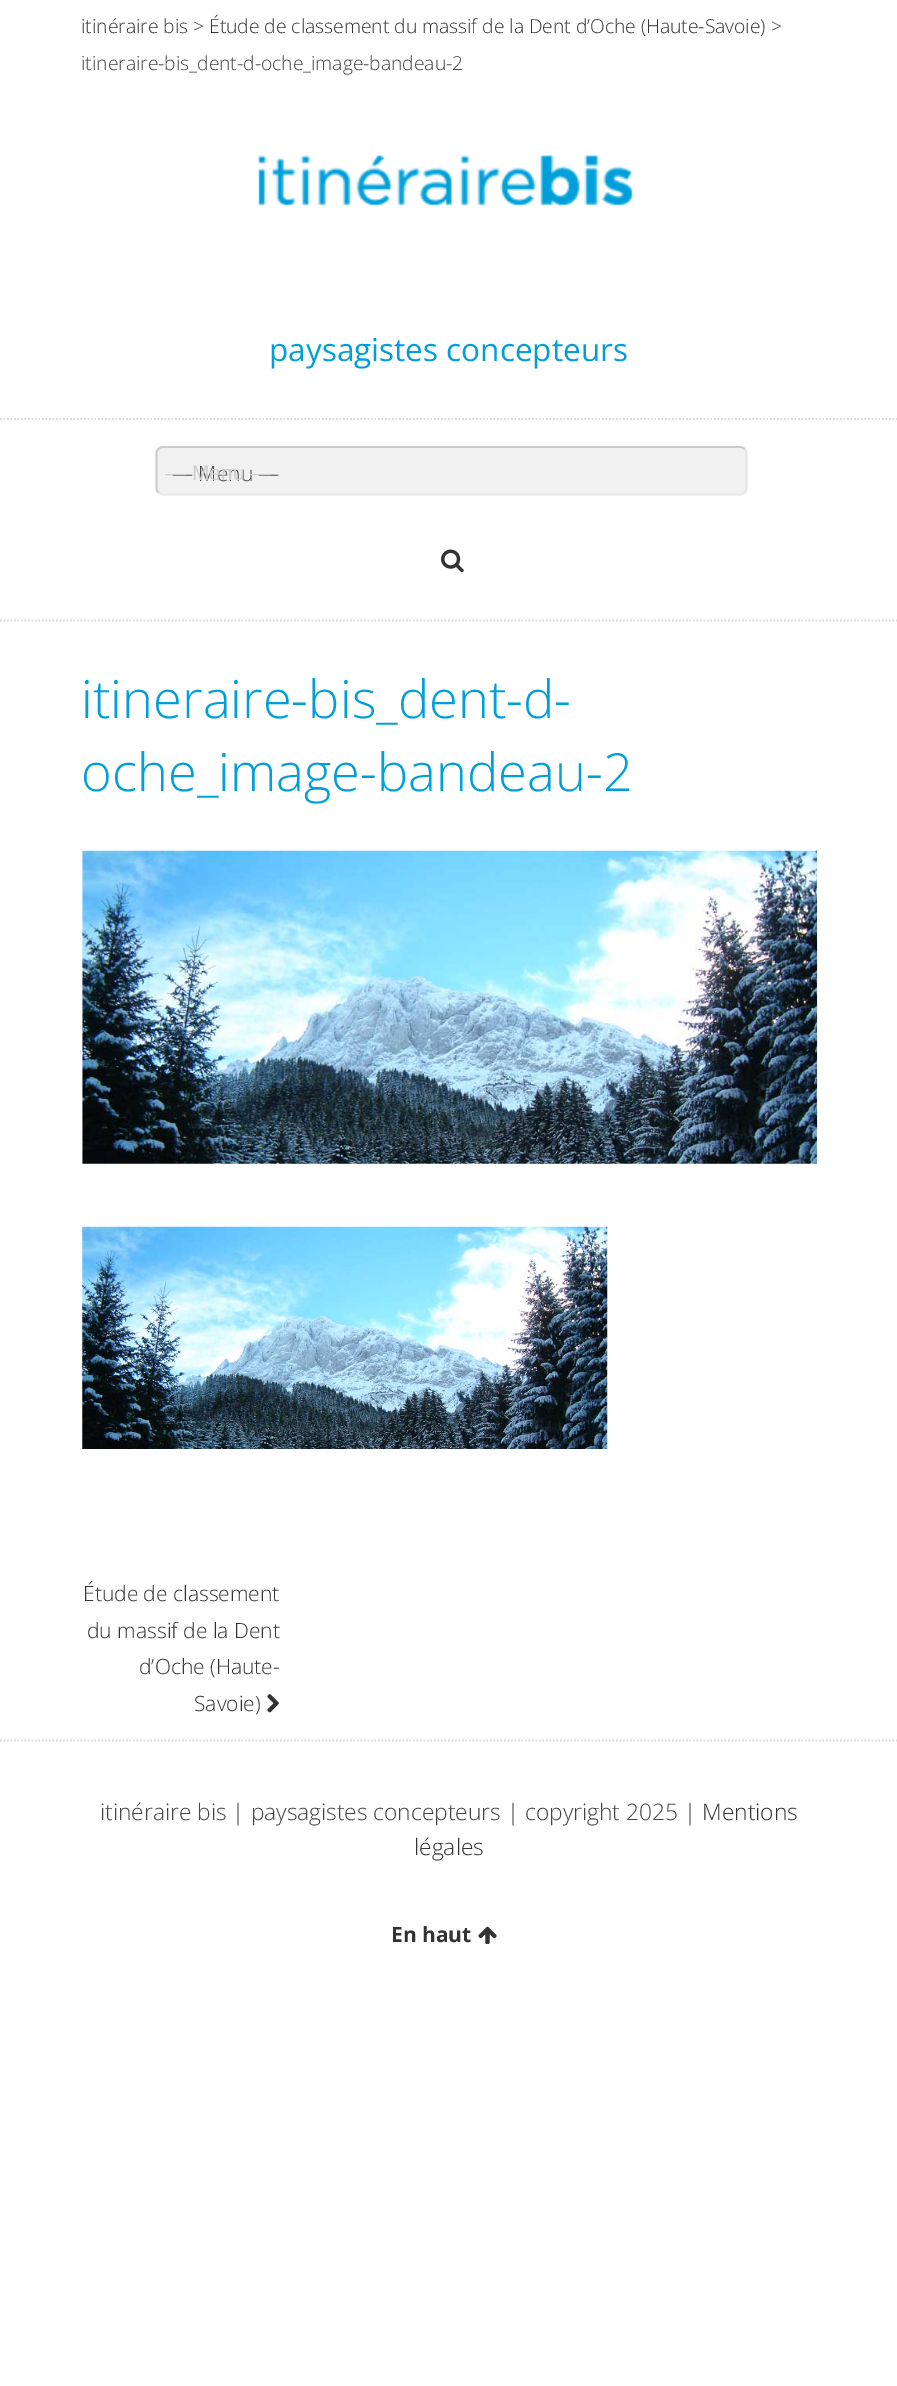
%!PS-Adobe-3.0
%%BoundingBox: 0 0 897 2386
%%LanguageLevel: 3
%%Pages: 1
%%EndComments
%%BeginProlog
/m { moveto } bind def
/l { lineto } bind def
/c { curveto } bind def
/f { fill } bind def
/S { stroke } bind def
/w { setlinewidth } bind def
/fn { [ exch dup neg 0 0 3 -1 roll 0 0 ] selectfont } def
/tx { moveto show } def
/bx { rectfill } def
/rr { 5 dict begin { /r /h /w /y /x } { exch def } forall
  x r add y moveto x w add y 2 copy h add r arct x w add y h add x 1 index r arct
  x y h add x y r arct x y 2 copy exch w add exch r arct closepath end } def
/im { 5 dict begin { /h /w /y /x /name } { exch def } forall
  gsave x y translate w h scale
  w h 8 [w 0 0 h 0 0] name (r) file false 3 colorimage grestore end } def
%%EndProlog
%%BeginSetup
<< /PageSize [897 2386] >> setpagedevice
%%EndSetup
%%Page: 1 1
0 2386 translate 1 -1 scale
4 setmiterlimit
1 setgray
0 0 897 2386 bx
/OpenSans-Light 19.25 fn
0.2 setgray
(itinéraire bis) 81 33 tx
0.267 setgray
(>) 193 33 tx
0.2 setgray
(Étude de classement du massif de la Dent d’Oche \(Haute-Savoie\)) 209 33 tx
0.267 setgray
(>) 771 33 tx
(itineraire-bis_dent-d-oche_image-bandeau-2) 81 70 tx
(image0.raw) 258 155 375 51 im
/OpenSans-Regular 31.5 fn
0 0.624 0.855 setrgbcolor
(paysagistes concepteurs) 269 361 tx
0.859 setgray
1.8 w
[1.75 1.75] 0 setdash
0 419 m 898 419 l S
0 620.5 m 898 620.5 l S
0.945 setgray
156 446 591 49 7 rr f
0.902 setgray
[] 0 setdash
744.5 449 m 745.5 450 746.5 451.5 746.5 453 c 746.5 488 l 746.5 490 745.5 491.5 744.5 492.5 c 743.5 493.5 742 494.5 740 494.5 c 163 494.5 l 161 494.5 159.5 493.5 158.5 492.5 c S
0.8 setgray
158.5 492.5 m 157.5 491.5 156.5 490 156.5 488 c 156.5 453 l 156.5 451.5 157.5 450 158.5 449 c 159.5 448 161 447 163 447 c 740 447 l 742 447 743.5 448 744.5 449 c S
/OpenSans-Light 21 fn
0.267 setgray
(— Menu —) 172 481 tx
/LiberationSans-Regular 21 fn
0.808 setgray
(— Menu —) 165 480 tx
(image1.raw) 441 549 23 24 im
/OpenSans-Light 52.5 fn
0 0.624 0.855 setrgbcolor
(itineraire-bis_dent-d-) 81 718 tx
(oche_image-bandeau-2) 81 791 tx
(image2.raw) 82 850 736 314 im
(image3.raw) 82 1226 526 223 im
/OpenSans-Light 21 fn
0.2 setgray
(Étude de classement) 83 1601 tx
(du massif de la Dent) 87 1638 tx
(d’Oche \(Haute-) 139 1674 tx
(Savoie\)) 194 1711 tx
(image4.raw) 267 1694 12 19 im
0.859 setgray
[1.75 1.75] 0 setdash
0 1740.5 m 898 1740.5 l S
/OpenSans-Light 22.75 fn
0.267 setgray
(itinéraire bis | paysagistes concepteurs | copyright 2025 |) 100 1820 tx
0.2 setgray
(Mentions) 702 1820 tx
(légales) 414 1855 tx
/OpenSans-Bold 21 fn
(En haut) 391 1942 tx
(image5.raw) 478 1926 19 18 im
showpage
%%EOF
